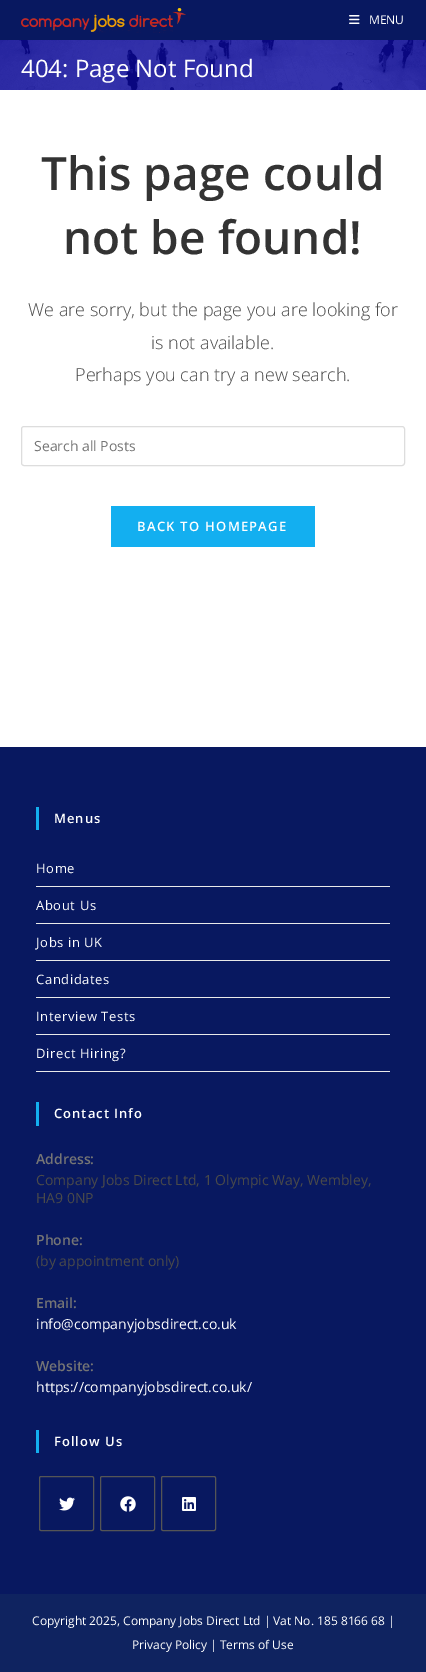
%!PS-Adobe-3.0
%%BoundingBox: 0 0 426 1672
%%LanguageLevel: 3
%%Pages: 1
%%EndComments
%%BeginProlog
/m { moveto } bind def
/S { stroke } bind def
/fn { [ exch dup neg 0 0 3 -1 roll 0 0 ] selectfont } def
/tx { moveto show } def
/bx { rectfill } def
/rr { 5 dict begin { /r /h /w /y /x } { exch def } forall
  x r add y moveto x w add y 2 copy h add r arct x w add y h add x 1 index r arct
  x y h add x y r arct x y 2 copy exch w add exch r arct closepath end } def
/im { 5 dict begin { /h /w /y /x /name } { exch def } forall
  gsave x y translate w h scale
  w h 8 [w 0 0 h 0 0] name (r) file false 3 colorimage grestore end } def
%%EndProlog
%%BeginSetup
<< /PageSize [426 1672] >> setpagedevice
%%EndSetup
%%Page: 1 1
0 1672 translate 1 -1 scale
4 setmiterlimit
1 setgray
0 0 426 1672 bx
0.031 0.094 0.376 setrgbcolor
0 0 426 40 bx
(image0.raw) 21 8 165 25 im
(image1.raw) 349 15 11 9 im
/OpenSans-Regular 12 fn
1 setgray
(MENU) 369 24 tx
(image2.raw) 0 40 426 50 im
/OpenSans-Regular 24 fn
(404: Page Not Found) 21 77 tx
/OpenSans-SemiBold 46 fn
0.2 setgray
(This page could) 41 190 tx
(not be found!) 63 254 tx
/OpenSans-Light 18 fn
0.29 setgray
(We are sorry, but the page you are looking for) 28 316 tx
(is not available.) 151 349 tx
(Perhaps you can try a new search.) 75 381 tx
0.867 setgray
21.5 426.5 383 39 2.5 rr S
/OpenSans-Regular 14 fn
0.459 setgray
(Search all Posts) 34 451 tx
0.075 0.686 0.941 setrgbcolor
111 506 204 41 bx
/OpenSans-SemiBold 13 fn
1 setgray
137 531 m 1.25 0 (BACK TO HOMEPAGE) ashow
0.031 0.094 0.376 setrgbcolor
0 747 426 847 bx
0.075 0.686 0.941 setrgbcolor
36 807 3 23 bx
1 setgray
54 823 m 1 0 (Menus) ashow
0.914 setgray
36 886 354 1 bx
/OpenSans-Regular 13 fn
1 setgray
36 873 m 0.6 0 (Home) ashow
0.914 setgray
36 923 354 1 bx
1 setgray
36 910 m 0.6 0 (About Us) ashow
0.914 setgray
36 960 354 1 bx
1 setgray
36 947 m 0.6 0 (Jobs in UK) ashow
0.914 setgray
36 997 354 1 bx
1 setgray
36 984 m 0.6 0 (Candidates) ashow
0.914 setgray
36 1034 354 1 bx
1 setgray
36 1021 m 0.6 0 (Interview Tests) ashow
0.914 setgray
36 1071 354 1 bx
1 setgray
36 1058 m 0.6 0 (Direct Hiring?) ashow
0.075 0.686 0.941 setrgbcolor
36 1102 3 24 bx
/OpenSans-SemiBold 13 fn
1 setgray
54 1118 m 1 0 (Contact Info) ashow
/OpenSans-SemiBold 14 fn
0.459 setgray
(Address:) 36 1164 tx
/OpenSans-Regular 14 fn
0.29 setgray
(Company Jobs Direct Ltd, 1 Olympic Way, Wembley,) 36 1185 tx
(HA9 0NP) 36 1203 tx
/OpenSans-SemiBold 14 fn
0.459 setgray
(Phone:) 36 1245 tx
/OpenSans-Regular 14 fn
0.29 setgray
(\(by appointment only\)) 36 1266 tx
/OpenSans-SemiBold 14 fn
0.459 setgray
(Email:) 36 1308 tx
/OpenSans-Regular 14 fn
1 setgray
(info@companyjobsdirect.co.uk) 36 1329 tx
/OpenSans-SemiBold 14 fn
0.459 setgray
(Website:) 36 1371 tx
/OpenSans-Regular 14 fn
1 setgray
(https://companyjobsdirect.co.uk/) 36 1392 tx
0.075 0.686 0.941 setrgbcolor
36 1430 3 23 bx
/OpenSans-SemiBold 13 fn
1 setgray
54 1446 m 1 0 (Follow Us) ashow
0.333 setgray
39.5 1476.5 54 54 1.5 rr S
(image3.raw) 59 1497 16 14 im
100.5 1476.5 54 54 1.5 rr S
(image4.raw) 120 1496 16 16 im
161.5 1476.5 54 54 1.5 rr S
(image5.raw) 182 1497 14 14 im
0.059 0.137 0.376 setrgbcolor
0 1594 426 78 bx
/OpenSans-Regular 12 fn
1 setgray
(Copyright 2025, Company Jobs Direct Ltd | Vat No. 185 8166 68 |) 32 1625 tx
(Privacy Policy | Terms of Use) 132 1649 tx
showpage
%%EOF
